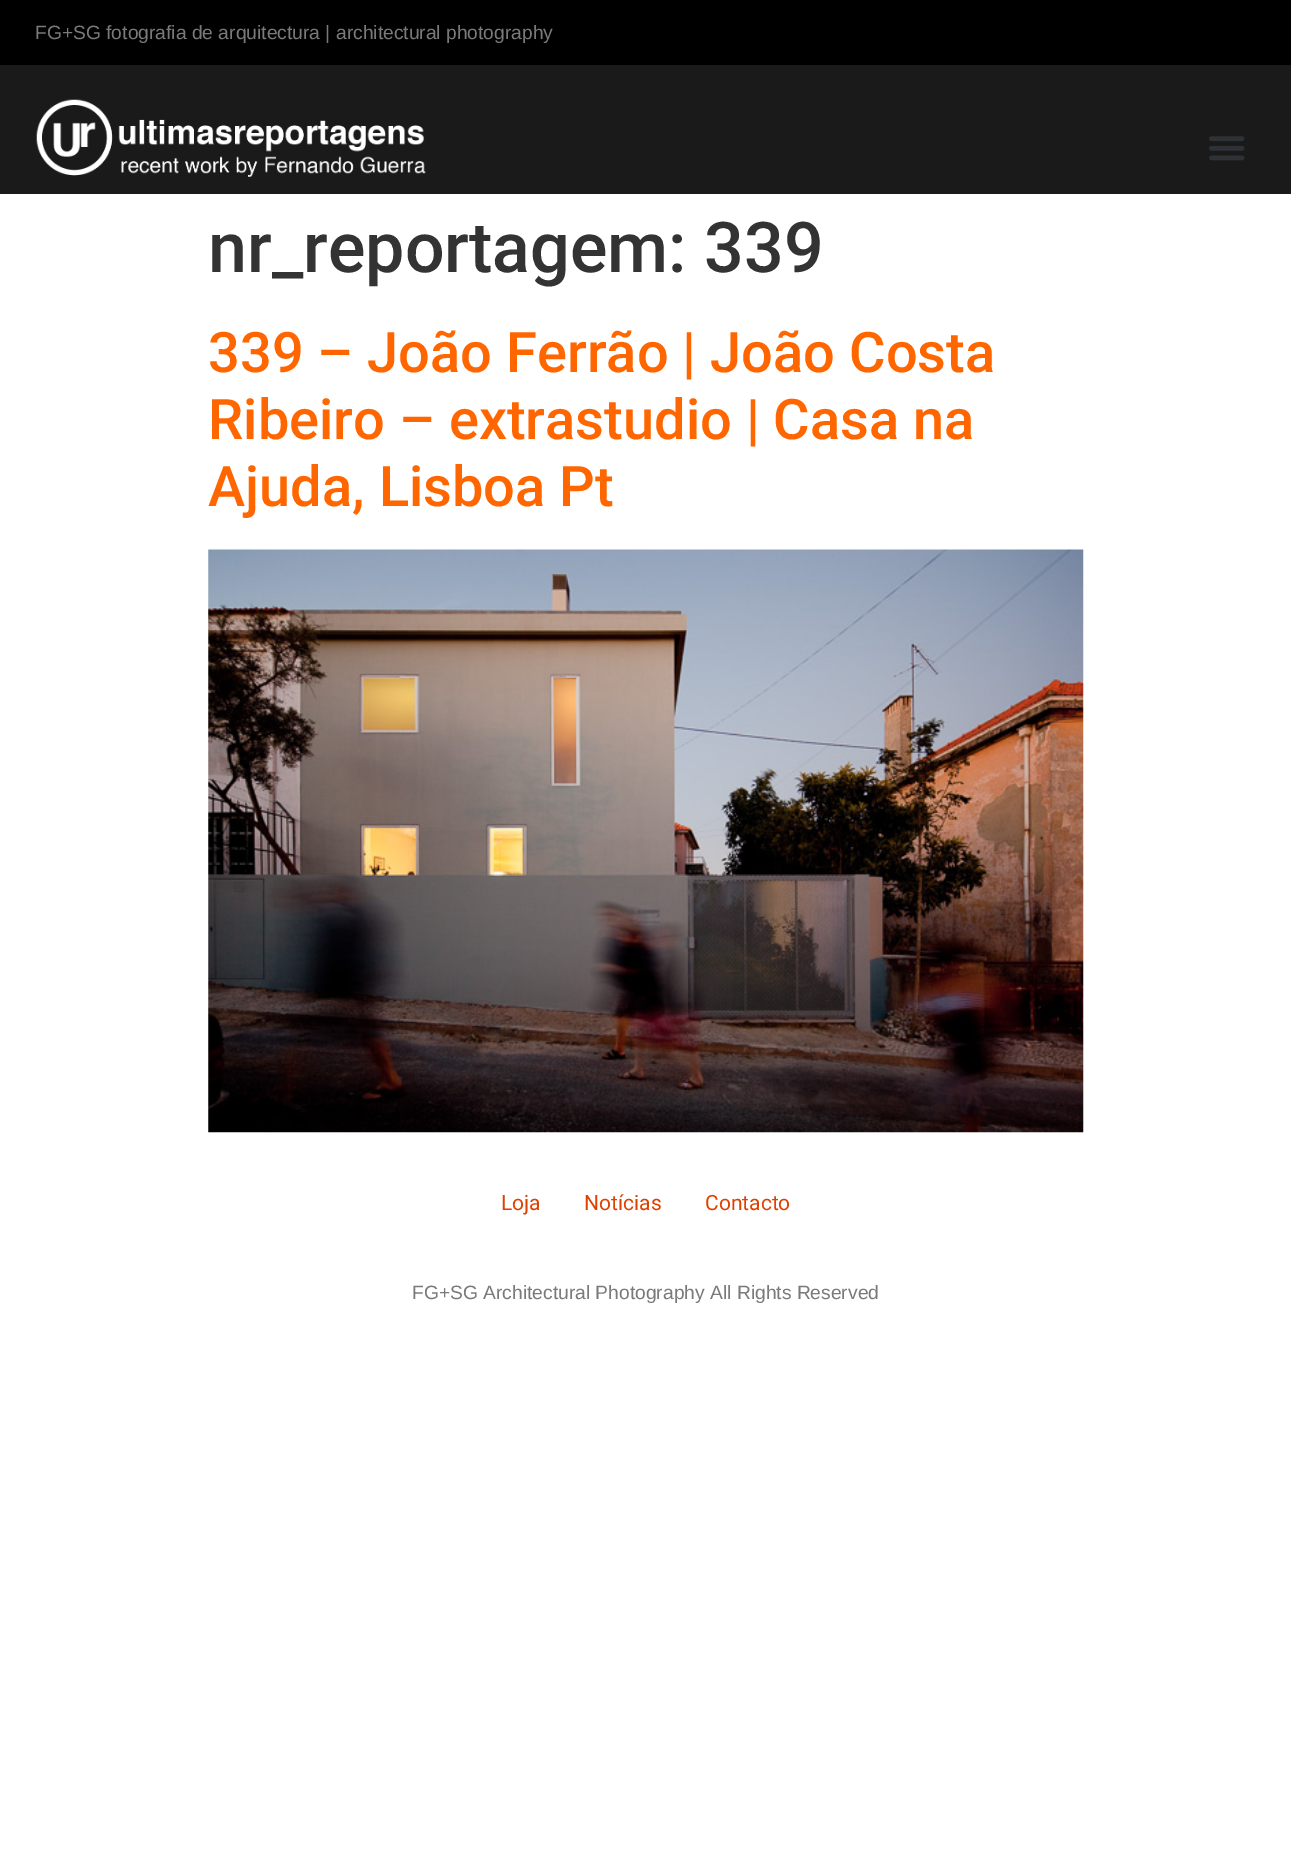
%!PS-Adobe-3.0
%%BoundingBox: 0 0 1291 1861
%%LanguageLevel: 3
%%Pages: 1
%%EndComments
%%BeginProlog
/fn { [ exch dup neg 0 0 3 -1 roll 0 0 ] selectfont } def
/tx { moveto show } def
/bx { rectfill } def
/im { 5 dict begin { /h /w /y /x /name } { exch def } forall
  gsave x y translate w h scale
  w h 8 [w 0 0 h 0 0] name (r) file false 3 colorimage grestore end } def
%%EndProlog
%%BeginSetup
<< /PageSize [1291 1861] >> setpagedevice
%%EndSetup
%%Page: 1 1
0 1861 translate 1 -1 scale
4 setmiterlimit
1 setgray
0 0 1291 1861 bx
0 setgray
0 0 1291 65 bx
/LiberationSans-Regular 19.25 fn
0.478 setgray
(FG+SG fotografia de arquitectura | architectural photography) 35 39 tx
0.102 setgray
0 65 1291 129 bx
(image0.raw) 36 99 390 78 im
(image1.raw) 1209 136 36 25 im
/Roboto-Medium 70 fn
0.2 setgray
(nr_reportagem: 339) 208 272 tx
/Roboto-Medium 56 fn
1 0.4 0 setrgbcolor
(339 – João Ferrão | João Costa) 208 372 tx
(Ribeiro – extrastudio | Casa na) 208 439 tx
(Ajuda, Lisboa Pt) 208 506 tx
(image2.raw) 208 549 876 584 im
/Roboto-Regular 21 fn
0.871 0.255 0 setrgbcolor
(Loja) 501 1210 tx
(Notícias) 584 1210 tx
(Contacto) 705 1210 tx
/LiberationSans-Regular 19.25 fn
0.478 setgray
(FG+SG Architectural Photography All Rights Reserved) 412 1299 tx
showpage
%%EOF
